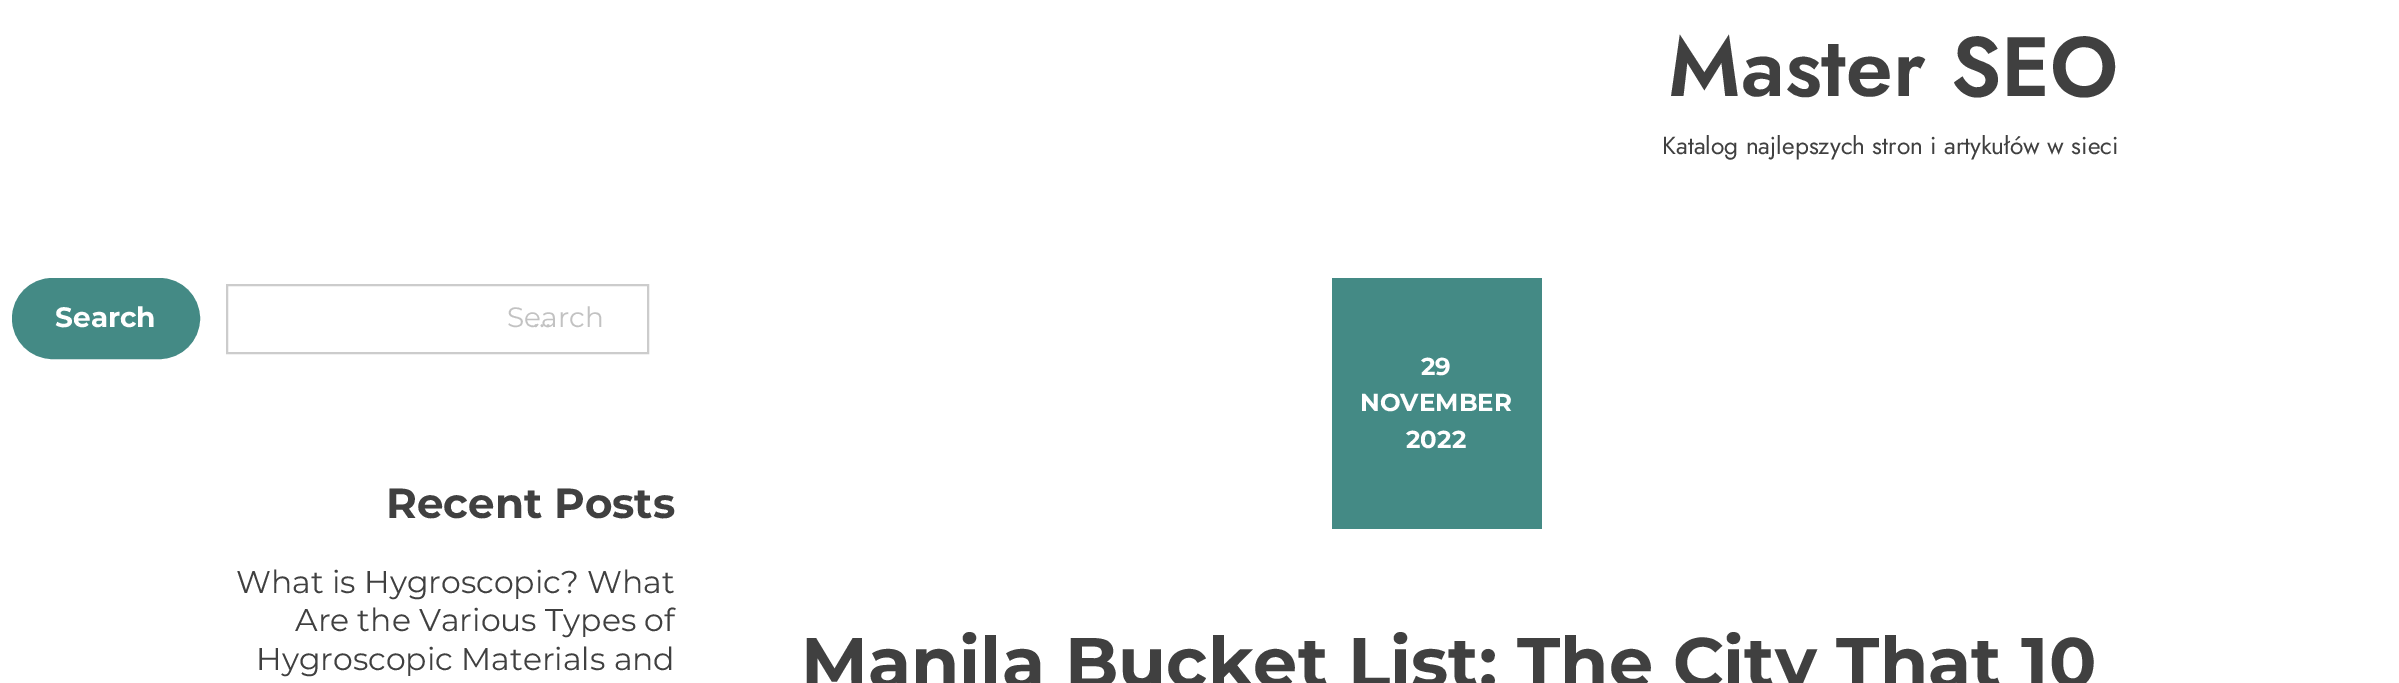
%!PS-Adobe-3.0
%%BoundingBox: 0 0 2399 683
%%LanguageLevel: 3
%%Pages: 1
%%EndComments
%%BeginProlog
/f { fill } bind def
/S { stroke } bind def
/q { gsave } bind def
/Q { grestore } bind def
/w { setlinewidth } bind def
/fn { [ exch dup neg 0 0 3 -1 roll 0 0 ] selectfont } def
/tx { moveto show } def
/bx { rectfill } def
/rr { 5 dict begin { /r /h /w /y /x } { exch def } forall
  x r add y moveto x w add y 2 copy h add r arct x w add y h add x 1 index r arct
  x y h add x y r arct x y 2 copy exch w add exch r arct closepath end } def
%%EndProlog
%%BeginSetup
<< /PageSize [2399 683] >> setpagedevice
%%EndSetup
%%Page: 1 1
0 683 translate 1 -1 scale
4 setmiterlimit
1 setgray
0 0 2399 683 bx
/Jost-SemiBold 84 fn
0.251 setgray
(Master SEO) 1668 96 tx
/Jost-Regular 24.5 fn
(Katalog najlepszych stron i artykułów w sieci) 1662 154 tx
0.267 0.541 0.522 setrgbcolor
13 279 186 79 39.5 rr q f Q
2 w
S
/Montserrat-Bold 28 fn
1 setgray
(Search) 55 327 tx
0.8 setgray
227 285 421 68 rectstroke
/Montserrat-Regular 28 fn
0.761 setgray
(Search) 507 327 tx
(…) 533 327 tx
/Montserrat-Bold 42 fn
0.251 setgray
(Recent Posts) 386 518 tx
/Montserrat-Regular 31.5 fn
(What is Hygroscopic? What) 236 593 tx
(Are the Various Types of) 295 631 tx
(Hygroscopic Materials and) 256 670 tx
0.267 0.541 0.522 setrgbcolor
1332 278 210 251 bx
/Montserrat-Bold 24.5 fn
1 setgray
(29) 1421 375 tx
(NOVEMBER) 1360 411 tx
(2022) 1406 448 tx
/Montserrat-Bold 70 fn
0.251 setgray
(Manila Bucket List: The City That 10) 801 687 tx
showpage
%%EOF
